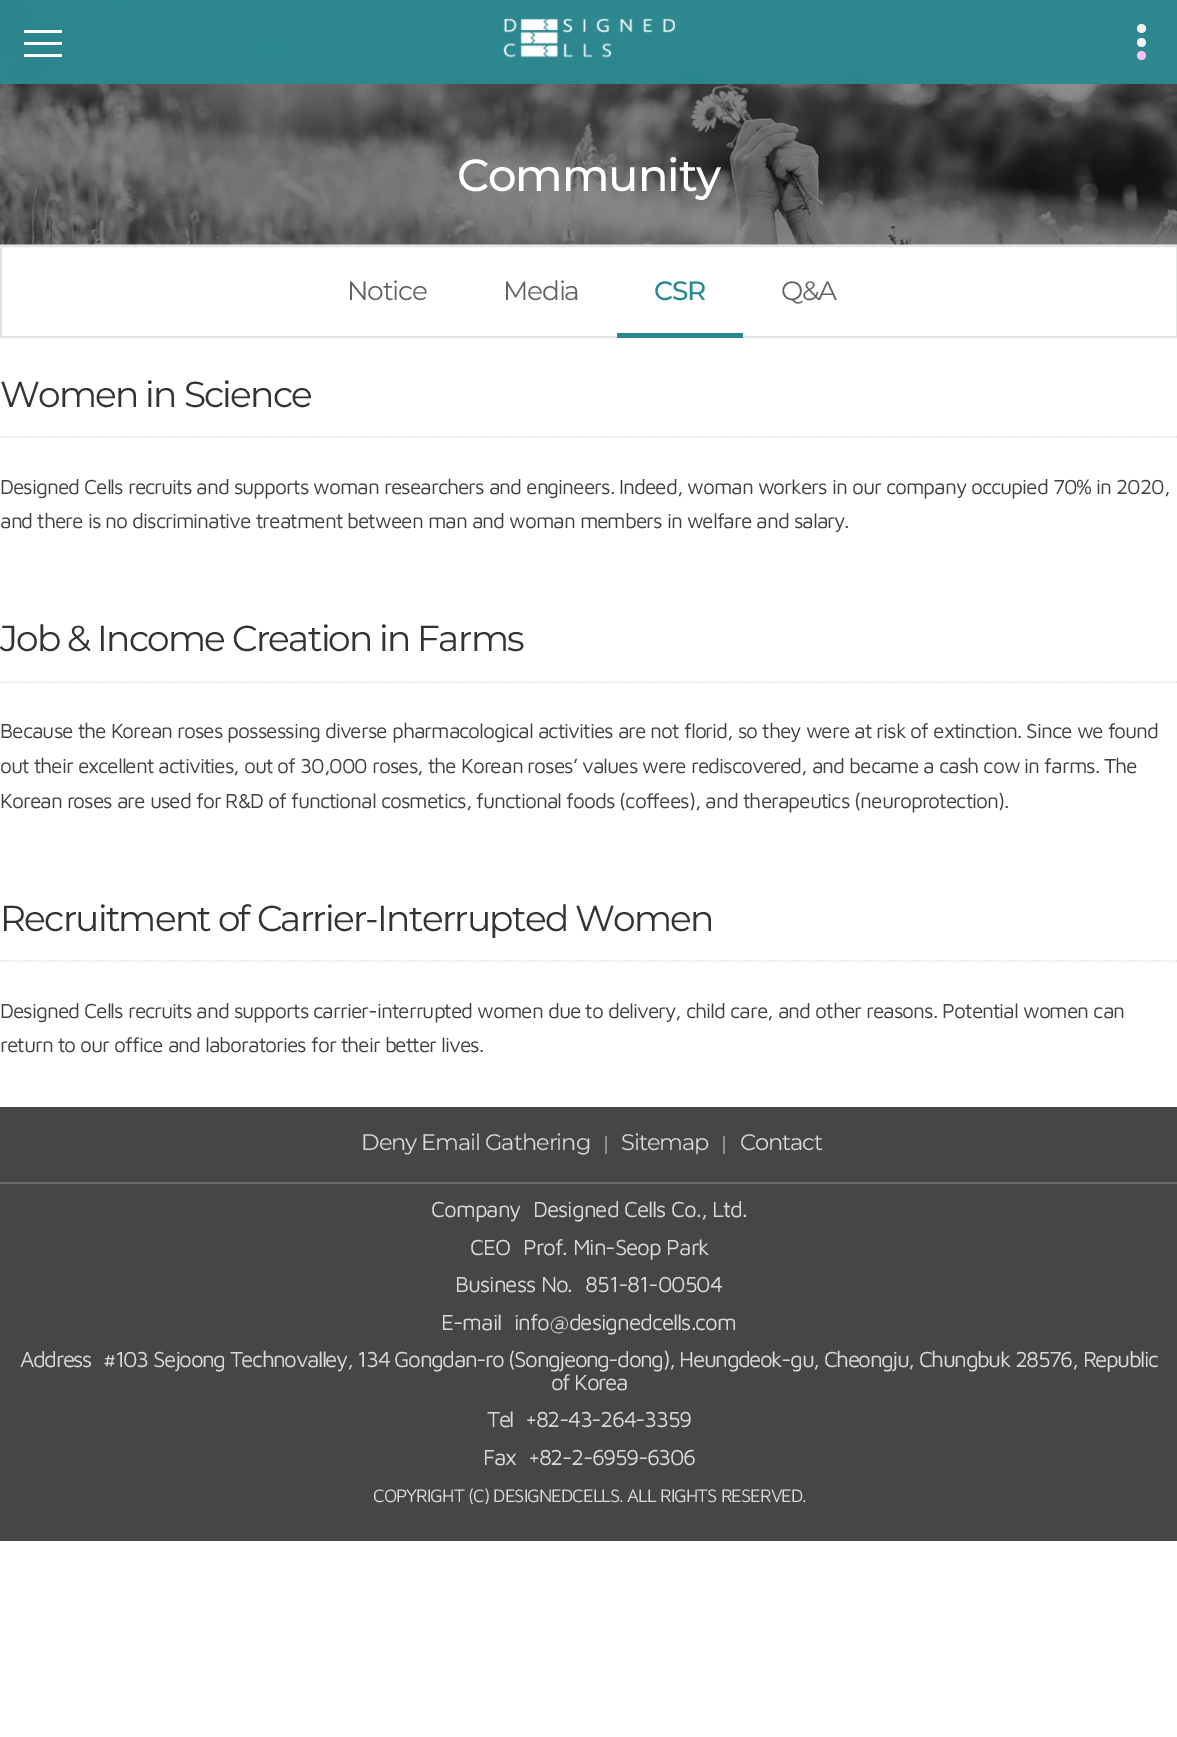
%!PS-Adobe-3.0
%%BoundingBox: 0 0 1177 1737
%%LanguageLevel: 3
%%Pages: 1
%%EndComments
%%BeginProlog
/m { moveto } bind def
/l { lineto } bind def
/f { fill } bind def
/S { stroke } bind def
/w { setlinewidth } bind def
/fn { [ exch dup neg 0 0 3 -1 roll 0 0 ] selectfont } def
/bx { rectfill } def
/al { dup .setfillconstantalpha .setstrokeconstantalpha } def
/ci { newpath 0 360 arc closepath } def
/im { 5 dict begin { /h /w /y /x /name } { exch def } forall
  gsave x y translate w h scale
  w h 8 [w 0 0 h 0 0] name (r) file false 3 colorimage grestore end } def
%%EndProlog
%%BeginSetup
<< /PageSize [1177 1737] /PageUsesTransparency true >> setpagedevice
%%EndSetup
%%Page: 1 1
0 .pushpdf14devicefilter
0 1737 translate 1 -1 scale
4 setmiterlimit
1 setgray
0 0 1177 1737 bx
0.906 0.941 0.973 setrgbcolor
0 244 1177 1 bx
(image1.raw) 0 0 1177 245 im
0.97 al
0.165 0.533 0.565 setrgbcolor
0 0 1177 84 bx
1 al
1 setgray
24 42 38 3 bx
24 30 38 3 bx
24 54 38 3 bx
0.945 setgray
1141.5 42.5 4.5 ci f
1141.5 28.5 4.5 ci f
1 0.753 0.961 setrgbcolor
1141.5 55.5 4.5 ci f
(image0.raw) 503 18 172 40 im
/Montserrat-Medium 45 fn
1 setgray
457 191 m -1.1 0 (Community) ashow
0.898 setgray
2 w
1 246 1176 91 rectstroke
/Montserrat-Regular 26.5 fn
0.384 setgray
347 300 m -1.25 0 (Notice) ashow
503 300 m -1.25 0 (Media) ashow
/Montserrat-Medium 26.5 fn
0.165 0.533 0.565 setrgbcolor
654 300 m -1.25 0 (CSR) ashow
617 333 126 5 bx
/Montserrat-Regular 26.5 fn
0.384 setgray
781 300 m -1.25 0 (Q&A) ashow
0.882 setgray
1.5 w
[1.5 1.5] 0 setdash
0 437 m 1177.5 437 l S
/Montserrat-Regular 36 fn
0.2 setgray
0 407 m -1.8 0 (Women in Science) ashow
/MavenPro-Regular 21 fn
0.251 setgray
0 494 m -1.05 0 (Designed Cells recruits and supports woman researchers and engineers. Indeed, woman workers in our company occupied 70% in 2020,) ashow
0 528 m -1.05 0 (and there is no discriminative treatment between man and woman members in welfare and salary.) ashow
0.882 setgray
0 682 m 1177.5 682 l S
/Montserrat-Regular 36 fn
0.2 setgray
0 651 m -1.8 0 (Job & Income Creation in Farms) ashow
/MavenPro-Regular 21 fn
0.251 setgray
0 738 m -1.05 0 (Because the Korean roses possessing diverse pharmacological activities are not florid, so they were at risk of extinction. Since we found) ashow
0 773 m -1.05 0 (out their excellent activities, out of 30,000 roses, the Korean roses’ values were rediscovered, and became a cash cow in farms. The) ashow
0 808 m -1.05 0 (Korean roses are used for R&D of functional cosmetics, functional foods \(coffees\), and therapeutics \(neuroprotection\).) ashow
0.882 setgray
0 961 m 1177.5 961 l S
/Montserrat-Regular 36 fn
0.2 setgray
0 931 m -1.8 0 (Recruitment of Carrier-Interrupted Women) ashow
/MavenPro-Regular 21 fn
0.251 setgray
0 1018 m -1.05 0 (Designed Cells recruits and supports carrier-interrupted women due to delivery, child care, and other reasons. Potential women can) ashow
0 1052 m -1.05 0 (return to our office and laboratories for their better lives.) ashow
0.275 setgray
0 1107 1177 434 bx
0.42 setgray
0 1182 1177 2 bx
/Montserrat-Regular 22.5 fn
0.855 setgray
361 1150 m -1.05 0 (Deny Email Gathering) ashow
0.565 setgray
605 1136 2 18 bx
0.855 setgray
621 1150 m -1.05 0 (Sitemap) ashow
0.565 setgray
723 1136 2 18 bx
0.855 setgray
740 1150 m -1.05 0 (Contact) ashow
/MavenPro-Regular 22.5 fn
431 1217 m -1.05 0 (Company) ashow
533 1217 m -1.05 0 (Designed Cells Co., Ltd.) ashow
470 1255 m -1.05 0 (CEO) ashow
523 1255 m -1.05 0 (Prof. Min-Seop Park) ashow
455 1292 m -1.05 0 (Business No.) ashow
585 1292 m -1.05 0 (851-81-00504) ashow
441 1330 m -1.05 0 (E-mail) ashow
514 1330 m -1.05 0 (info@designedcells.com) ashow
20 1367 m -1.5 0 (Address) ashow
103 1367 m -1.5 0 (#103 Sejoong Technovalley, 134 Gongdan-ro \(Songjeong-dong\), Heungdeok-gu, Cheongju, Chungbuk 28576, Republic) ashow
551 1390 m -1.5 0 (of Korea) ashow
487 1427 m -1.5 0 (Tel) ashow
525 1427 m -1.5 0 (+82-43-264-3359) ashow
483 1465 m -1.5 0 (Fax) ashow
528 1465 m -1.5 0 (+82-2-6959-6306) ashow
/MavenPro-Regular 18.6 fn
373 1502 m -1.05 0 (COPYRIGHT \(C\) DESIGNEDCELLS. ALL RIGHTS RESERVED.) ashow
.poppdf14devicefilter showpage
%%EOF
